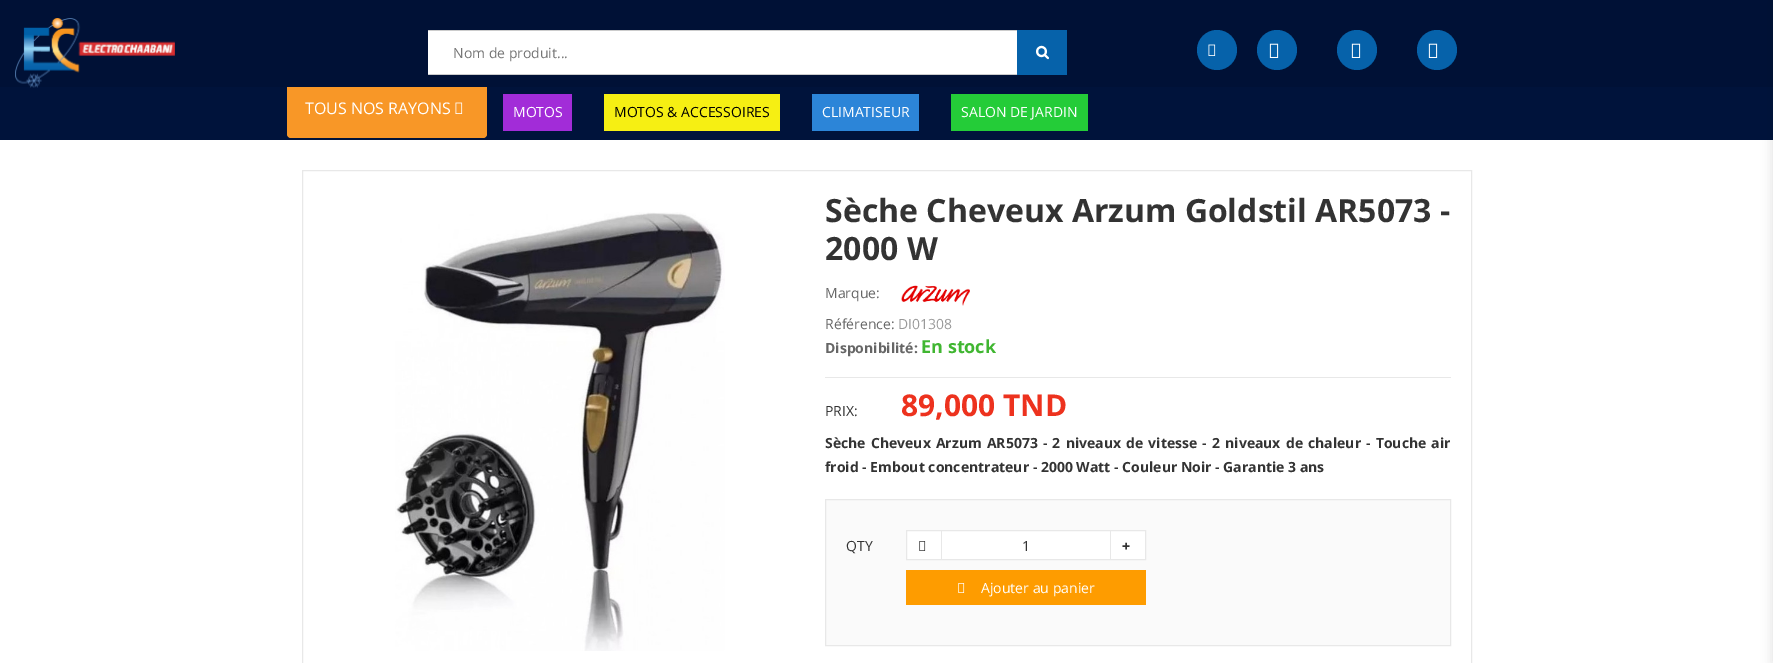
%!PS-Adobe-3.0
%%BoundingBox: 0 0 1773 663
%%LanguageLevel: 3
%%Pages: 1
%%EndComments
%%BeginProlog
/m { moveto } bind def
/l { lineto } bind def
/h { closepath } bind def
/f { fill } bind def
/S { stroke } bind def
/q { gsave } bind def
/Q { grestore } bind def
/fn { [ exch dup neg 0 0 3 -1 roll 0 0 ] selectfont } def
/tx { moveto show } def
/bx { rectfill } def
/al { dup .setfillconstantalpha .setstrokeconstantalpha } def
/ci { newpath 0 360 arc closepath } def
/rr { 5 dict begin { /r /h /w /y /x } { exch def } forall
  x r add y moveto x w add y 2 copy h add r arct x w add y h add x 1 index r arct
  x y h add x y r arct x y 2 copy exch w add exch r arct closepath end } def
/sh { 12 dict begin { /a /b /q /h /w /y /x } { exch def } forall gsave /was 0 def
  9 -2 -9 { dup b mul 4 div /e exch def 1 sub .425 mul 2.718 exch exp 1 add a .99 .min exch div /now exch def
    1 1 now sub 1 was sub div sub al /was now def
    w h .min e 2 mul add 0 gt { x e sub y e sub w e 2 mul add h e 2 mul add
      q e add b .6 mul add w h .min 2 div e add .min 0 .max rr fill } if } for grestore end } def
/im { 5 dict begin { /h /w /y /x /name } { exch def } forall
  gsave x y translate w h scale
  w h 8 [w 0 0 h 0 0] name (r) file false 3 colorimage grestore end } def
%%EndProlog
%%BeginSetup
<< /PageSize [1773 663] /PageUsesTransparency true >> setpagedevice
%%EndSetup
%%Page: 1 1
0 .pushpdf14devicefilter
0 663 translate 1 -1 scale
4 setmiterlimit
1 setgray
0 0 1773 663 bx
0 0.075 0.231 setrgbcolor
0 87 1773 53 bx
0.973 0.592 0.153 setrgbcolor
287 78 200 60 4 rr f
0 0.067 0.212 setrgbcolor
0 0 1773 87 bx
(image0.raw) 15 18 160 70 im
1 setgray
428 31 589 43 bx
0.8 setgray
428 30 589 1 bx
428 74 589 1 bx
/OpenSans-Regular 14 fn
0.459 setgray
(Nom de produit...) 453 58 tx
0.024 0.384 0.667 setrgbcolor
1017 30 50 45 bx
(image1.raw) 1036 45 13 15 im
1217 50 20 ci f
(image2.raw) 1208 44 8 12 im
1277 50 20 ci f
(image3.raw) 1269 43 10 15 im
1357 50 20 ci f
(image3.raw) 1351 43 10 15 im
1437 50 20 ci f
(image3.raw) 1428 43 10 15 im
0 setgray
1771 0 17 663 0 5 0.1 sh
/OpenSans-Regular 16 fn
1 setgray
(TOUS NOS RAYONS) 305 114 tx
(image4.raw) 455 102 8 12 im
0.635 0.173 0.847 setrgbcolor
503 94 69 37 bx
/OpenSans-Regular 14 fn
1 setgray
(MOTOS) 513 117 tx
0.965 0.937 0.075 setrgbcolor
604 94 176 37 bx
0 setgray
(MOTOS & ACCESSOIRES) 614 117 tx
0.173 0.522 0.847 setrgbcolor
812 94 107 37 bx
1 setgray
(CLIMATISEUR) 822 117 tx
0.141 0.8 0.22 setrgbcolor
951 94 137 37 bx
1 setgray
(SALON DE JARDIN) 961 117 tx
0.91 setgray
302.5 170.5 1169 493 rectstroke
(image5.raw) 395 212 330 439 im
/OpenSans-Bold 32 fn
0.2 setgray
(Sèche Cheveux Arzum Goldstil AR5073 -) 825 222 tx
(2000 W) 825 260 tx
/OpenSans-Regular 14 fn
0.4 setgray
(Marque:) 825 298 tx
(image6.raw) 901 285 69 21 im
(Référence:) 825 329 tx
0.6 setgray
(DI01308) 898 329 tx
/OpenSans-Bold 14 fn
0.4 setgray
(Disponibilité:) 825 353 tx
/OpenSans-Bold 18 fn
0.251 0.714 0.192 setrgbcolor
(En stock) 921 353 tx
0.91 setgray
825 377 626 1 bx
/OpenSans-Regular 14 fn
0.2 setgray
(PRIX:) 825 416 tx
/OpenSans-Bold 30 fn
0.929 0.196 0.118 setrgbcolor
(89,000 TND) 901 416 tx
/OpenSans-Bold 14 fn
0.2 setgray
825 448 m 1.5 0 32 (Sèche Cheveux Arzum AR5073 - 2 niveaux de vitesse - 2 niveaux de chaleur - Touche air) widthshow
(froid - Embout concentrateur - 2000 Watt - Couleur Noir - Garantie 3 ans) 825 472 tx
0.98 setgray
825.5 499.5 m 1450.5 499.5 l 1450.5 645.5 l 825.5 645.5 l h q f Q
0.91 setgray
S
/OpenSans-Regular 14 fn
0.2 setgray
(QTY) 846 551 tx
1 setgray
906.5 530.5 m 1145.5 530.5 l 1145.5 559.5 l 906.5 559.5 l h q f Q
0.91 setgray
S
941 531 1 28 bx
(image7.raw) 919 541 7 10 im
0.2 setgray
(1) 1022 551 tx
0.91 setgray
1110 531 1 28 bx
/NotoSans-Black 14 fn
0.2 setgray
(+) 1122 551 tx
0.996 0.612 0 setrgbcolor
906 570 240 35 bx
(image8.raw) 958 583 7 10 im
/OpenSans-Regular 14 fn
1 setgray
(Ajouter au panier) 981 593 tx
.poppdf14devicefilter showpage
%%EOF
